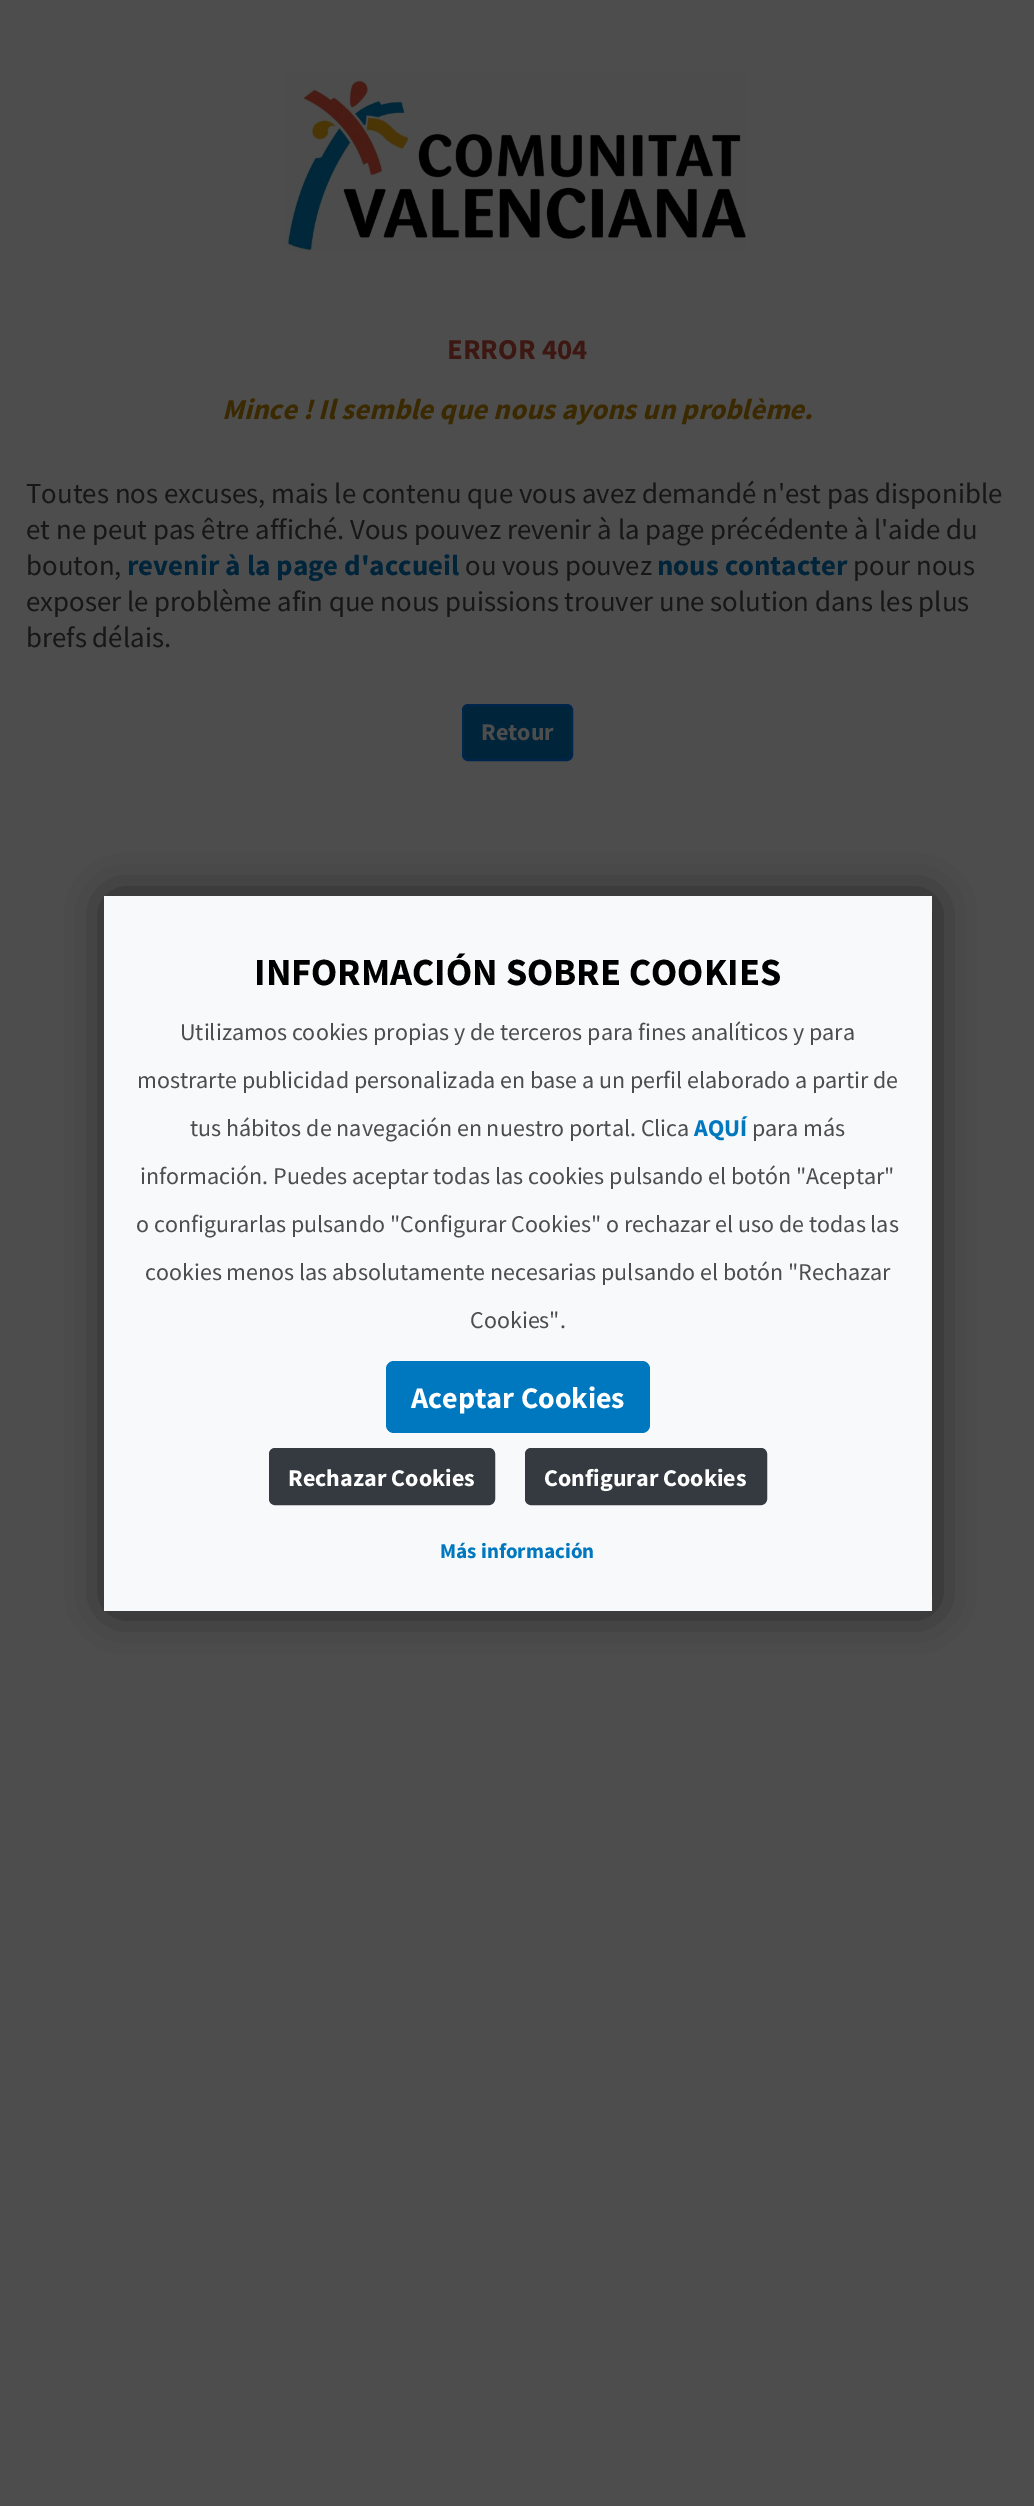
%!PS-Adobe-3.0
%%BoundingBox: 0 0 1034 2506
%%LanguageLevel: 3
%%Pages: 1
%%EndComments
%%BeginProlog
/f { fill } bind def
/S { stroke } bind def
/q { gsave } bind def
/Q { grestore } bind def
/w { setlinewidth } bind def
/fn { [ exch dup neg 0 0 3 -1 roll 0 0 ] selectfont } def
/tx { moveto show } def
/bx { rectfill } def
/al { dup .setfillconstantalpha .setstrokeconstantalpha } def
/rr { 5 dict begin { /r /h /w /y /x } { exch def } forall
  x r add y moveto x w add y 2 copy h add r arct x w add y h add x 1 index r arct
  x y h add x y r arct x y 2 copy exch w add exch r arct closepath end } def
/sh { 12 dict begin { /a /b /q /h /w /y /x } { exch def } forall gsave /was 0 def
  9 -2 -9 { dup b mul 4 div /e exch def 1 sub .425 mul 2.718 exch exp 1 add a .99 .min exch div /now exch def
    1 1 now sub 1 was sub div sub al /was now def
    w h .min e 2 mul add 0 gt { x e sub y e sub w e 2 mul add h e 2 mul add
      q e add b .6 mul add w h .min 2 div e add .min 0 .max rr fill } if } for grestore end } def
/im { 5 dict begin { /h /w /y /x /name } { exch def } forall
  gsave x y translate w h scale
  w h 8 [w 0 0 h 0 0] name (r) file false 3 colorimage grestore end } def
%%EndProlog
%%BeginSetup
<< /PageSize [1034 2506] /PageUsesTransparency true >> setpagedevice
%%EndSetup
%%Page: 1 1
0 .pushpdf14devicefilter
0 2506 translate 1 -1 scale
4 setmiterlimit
0.302 setgray
0 0 1034 2506 bx
(image0.raw) 284 72 462 179 im
/SourceSansPro-Bold 28.8 fn
0.239 0.094 0.075 setrgbcolor
(ERROR 404) 447 359 tx
/SourceSansPro-BoldItalic 28.8 fn
0.227 0.161 0.004 setrgbcolor
(Mince ! Il semble que nous ayons un problème.) 222 419 tx
/SourceSansPro-Regular 28.8 fn
0.09 setgray
(Toutes nos excuses, mais le contenu que vous avez demandé n'est pas disponible) 26 503 tx
(et ne peut pas être affiché. Vous pouvez revenir à la page précédente à l'aide du) 26 539 tx
(bouton,) 26 575 tx
/SourceSansPro-Bold 28.8 fn
0 0.141 0.224 setrgbcolor
(revenir à la page d'accueil) 127 575 tx
/SourceSansPro-Regular 28.8 fn
0.09 setgray
(ou vous pouvez) 465 575 tx
/SourceSansPro-Bold 28.8 fn
0 0.141 0.224 setrgbcolor
(nous contacter) 657 575 tx
/SourceSansPro-Regular 28.8 fn
0.09 setgray
(pour nous) 853 575 tx
(exposer le problème afin que nous puissions trouver une solution dans les plus) 26 611 tx
(brefs délais.) 26 647 tx
0 0.141 0.224 setrgbcolor
463 705 109 55 5 rr q f Q
0 0.145 0.302 setrgbcolor
2 w
S
/SourceSansPro-Bold 24 fn
0.302 setgray
(Retour) 481 740 tx
0 setgray
114 903 813 701 0 22.5 0.75 sh
0.973 0.976 0.98 setrgbcolor
104 896 828 715 bx
/SourceSansPro-Bold 38.4 fn
0 setgray
(INFORMACIÓN SOBRE COOKIES) 254 985 tx
/SourceSansPro-Regular 24 fn
0.302 setgray
(Utilizamos cookies propias y de terceros para fines analíticos y para) 180 1040 tx
(mostrarte publicidad personalizada en base a un perfil elaborado a partir de) 137 1088 tx
(tus hábitos de navegación en nuestro portal. Clica) 190 1136 tx
/SourceSansPro-Bold 24 fn
0 0.471 0.749 setrgbcolor
(AQUÍ) 694 1136 tx
/SourceSansPro-Regular 24 fn
0.302 setgray
(para más) 752 1136 tx
(información. Puedes aceptar todas las cookies pulsando el botón "Aceptar") 140 1184 tx
(o configurarlas pulsando "Configurar Cookies" o rechazar el uso de todas las) 136 1232 tx
(cookies menos las absolutamente necesarias pulsando el botón "Rechazar) 145 1280 tx
(Cookies".) 470 1328 tx
0 0.471 0.749 setrgbcolor
386 1361 264 72 8 rr f
/SourceSansPro-Bold 30 fn
1 setgray
(Aceptar Cookies) 411 1408 tx
0.204 0.227 0.251 setrgbcolor
270 1449 224 55 5 rr q f Q
S
/SourceSansPro-Bold 24 fn
1 setgray
(Rechazar Cookies) 288 1486 tx
0.204 0.227 0.251 setrgbcolor
526 1449 240 55 5 rr q f Q
S
1 setgray
(Configurar Cookies) 544 1486 tx
/SourceSansPro-Bold 21 fn
0 0.471 0.749 setrgbcolor
(Más información) 440 1558 tx
.poppdf14devicefilter showpage
%%EOF
